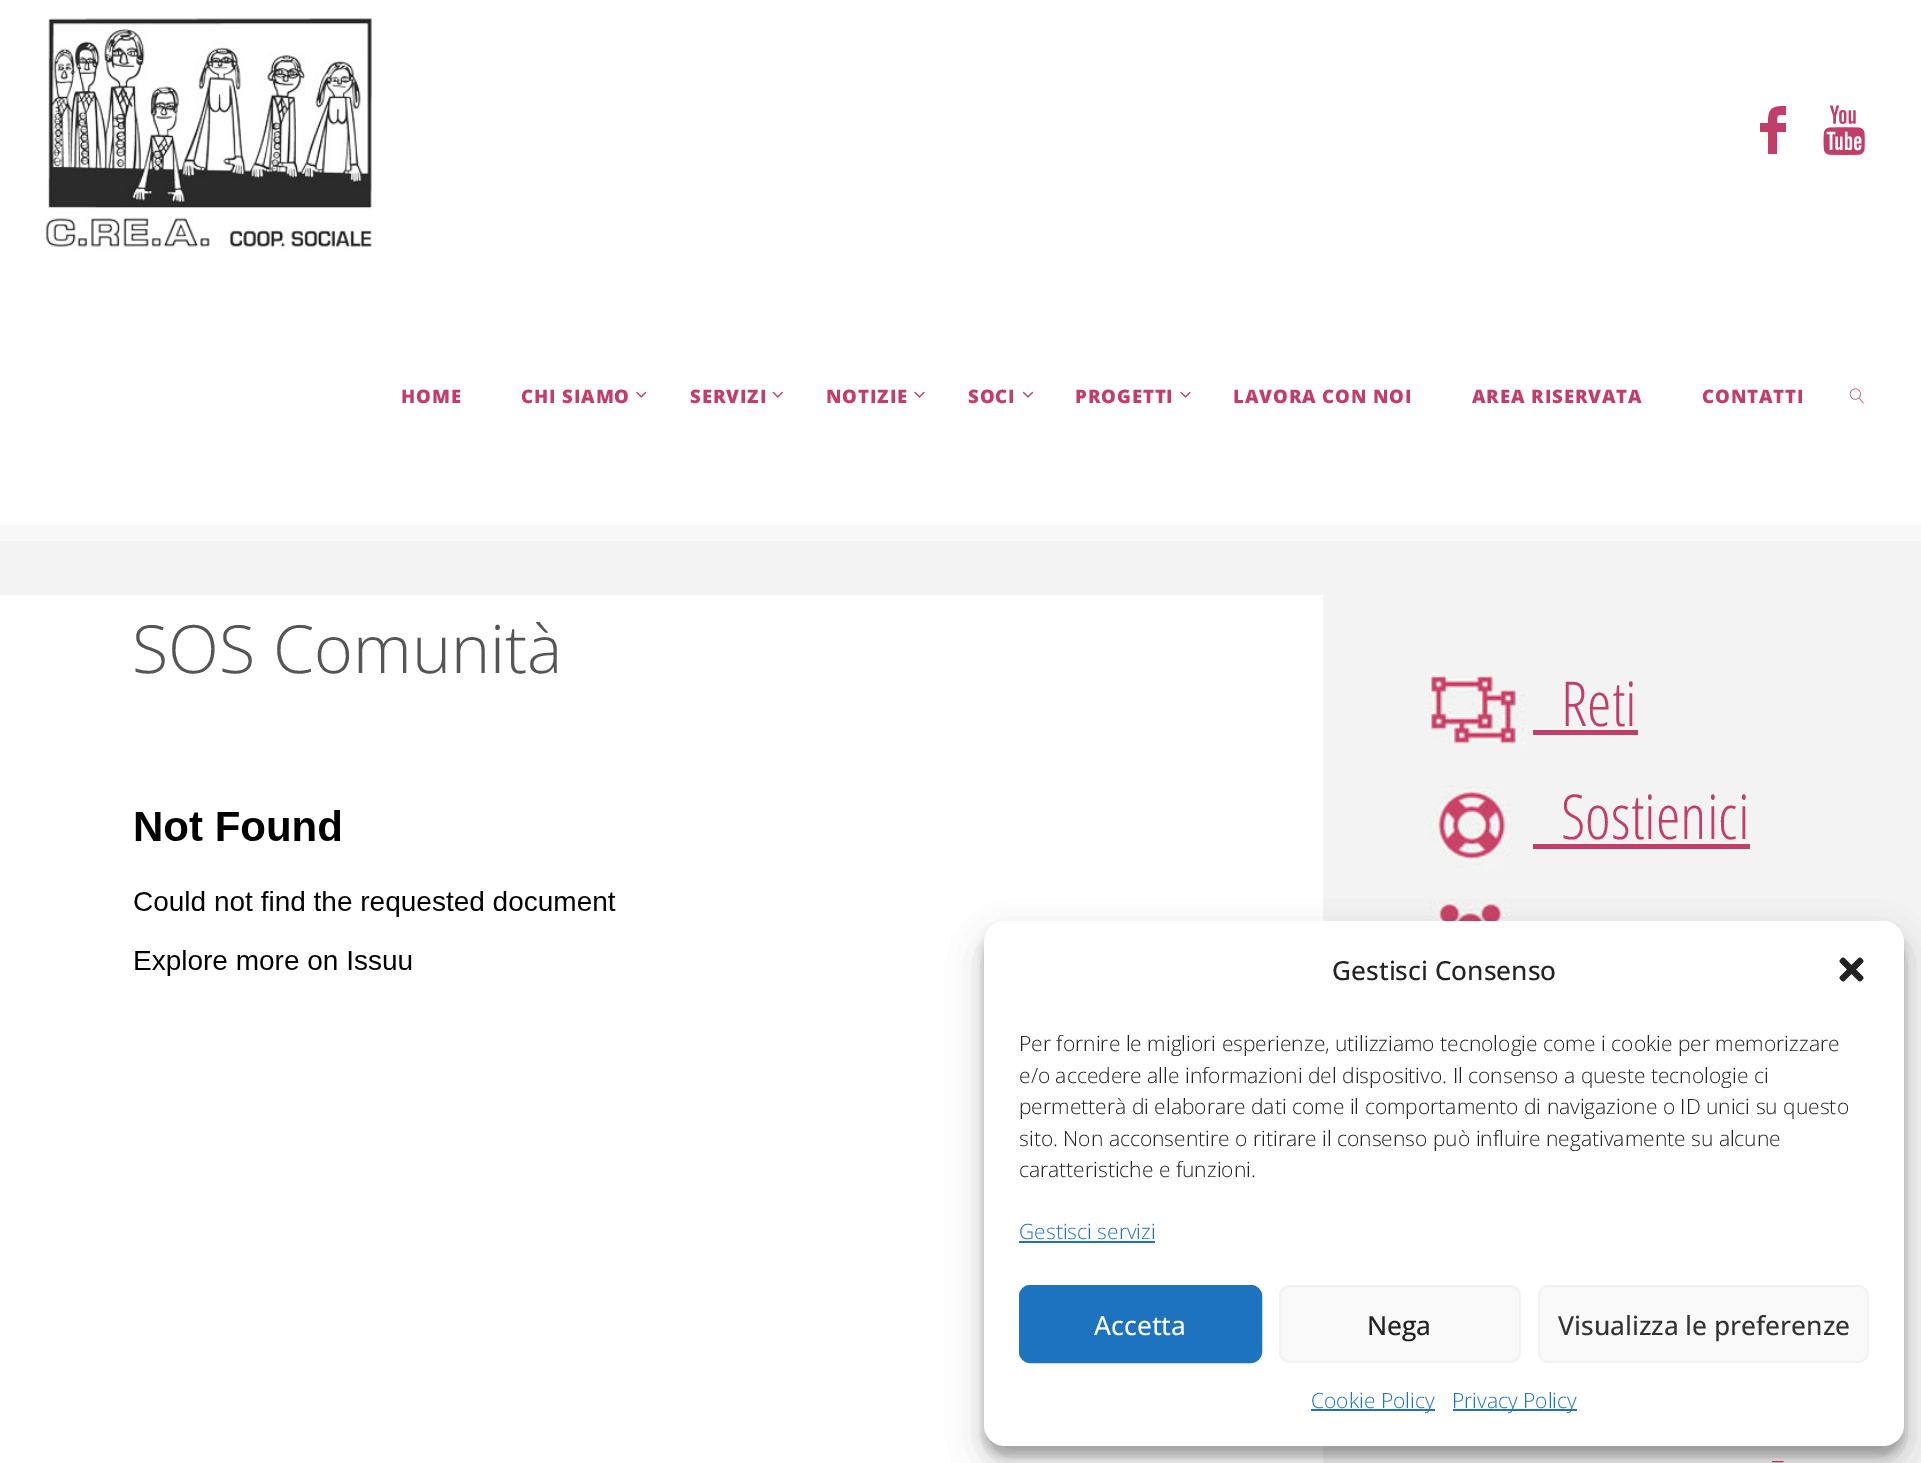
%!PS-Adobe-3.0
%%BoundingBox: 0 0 1921 1463
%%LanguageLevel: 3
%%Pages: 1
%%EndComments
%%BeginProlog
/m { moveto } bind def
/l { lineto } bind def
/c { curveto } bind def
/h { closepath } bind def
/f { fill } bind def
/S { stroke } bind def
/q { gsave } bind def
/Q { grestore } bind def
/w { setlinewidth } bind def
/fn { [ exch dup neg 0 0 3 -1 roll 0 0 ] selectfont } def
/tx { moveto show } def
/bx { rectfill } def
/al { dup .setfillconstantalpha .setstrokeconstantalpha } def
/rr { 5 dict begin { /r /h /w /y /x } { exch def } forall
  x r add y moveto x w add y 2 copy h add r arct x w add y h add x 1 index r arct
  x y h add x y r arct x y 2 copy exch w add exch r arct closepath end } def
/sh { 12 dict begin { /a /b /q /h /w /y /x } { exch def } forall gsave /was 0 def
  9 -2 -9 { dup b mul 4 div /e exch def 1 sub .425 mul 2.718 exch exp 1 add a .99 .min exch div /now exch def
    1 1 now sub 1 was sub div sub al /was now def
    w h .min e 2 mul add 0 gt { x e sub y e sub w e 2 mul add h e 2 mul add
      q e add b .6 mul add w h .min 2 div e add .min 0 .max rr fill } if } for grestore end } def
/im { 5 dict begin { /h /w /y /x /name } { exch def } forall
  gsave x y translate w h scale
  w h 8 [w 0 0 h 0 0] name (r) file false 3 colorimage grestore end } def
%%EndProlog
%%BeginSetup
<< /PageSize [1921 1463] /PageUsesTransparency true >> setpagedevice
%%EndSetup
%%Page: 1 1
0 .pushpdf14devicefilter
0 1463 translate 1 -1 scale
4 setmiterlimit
0.953 setgray
0 0 1921 1463 bx
1 setgray
0 0 1921 525 bx
(image0.raw) 45 18 327 233 im
0.761 0.243 0.412 setrgbcolor
1760 132 m 1760 123 l 1768 123 l 1768 108 1772 106 1786 106 c 1786 115 l 1777 115 1777 114 1777 123 c 1786 123 l 1786 132 l 1777 132 l 1777 154 l 1768 154 l 1768 132 l h f
(image1.raw) 1823 105 42 50 im
/OpenSans-ExtraBold 18.6 fn
401 403 m 0.9 0 (HOME) ashow
521 403 m 0.9 0 (CHI SIAMO) ashow
(image2.raw) 636 391 11 7 im
690 403 m 0.9 0 (SERVIZI) ashow
(image3.raw) 772 391 11 7 im
826 403 m 0.9 0 (NOTIZIE) ashow
(image4.raw) 914 391 11 7 im
968 403 m 0.9 0 (SOCI) ashow
(image5.raw) 1022 391 12 7 im
1075 403 m 0.9 0 (PROGETTI) ashow
(image4.raw) 1180 391 11 7 im
1233 403 m 0.9 0 (LAVORA CON NOI) ashow
1472 403 m 0.9 0 (AREA RISERVATA) ashow
1702 403 m 0.9 0 (CONTATTI) ashow
(image6.raw) 1849 388 15 16 im
0.973 setgray
0 525 1921 16 bx
1 setgray
0 595 1323 868 bx
/OpenSans-Light 66.5 fn
0.333 setgray
(SOS Comunità) 132 673 tx
(image7.raw) 134 810 482 166 im
(image8.raw) 1428 674 98 71 im
/OpenSansCondensed-Light 62 fn
0.761 0.243 0.412 setrgbcolor
(Reti) 1561 726 tx
1533 730 105 5 bx
(image9.raw) 1428 785 84 85 im
(Sostienici) 1561 839 tx
1533 844 217 5 bx
(image10.raw) 1428 899 84 22 im
/OpenSans-Light 27 fn
(–) 1771 1469 tx
0 setgray
984 931 920 525 21 5 0.23 sh
984 938 920 525 21 17.5 0.19 sh
1 setgray
984 921 920 525 21 rr f
/OpenSans-Medium 26.25 fn
0.133 setgray
(Gestisci Consenso) 1332 980 tx
(image11.raw) 1839 957 25 25 im
/OpenSans-Light 21 fn
(Per fornire le migliori esperienze, utilizziamo tecnologie come i cookie per memorizzare) 1019 1051 tx
(e/o accedere alle informazioni del dispositivo. Il consenso a queste tecnologie ci) 1019 1083 tx
(permetterà di elaborare dati come il comportamento di navigazione o ID unici su questo) 1019 1114 tx
(sito. Non acconsentire o ritirare il consenso può influire negativamente su alcune) 1019 1146 tx
(caratteristiche e funzioni.) 1019 1177 tx
0.118 0.451 0.745 setrgbcolor
(Gestisci servizi) 1019 1239 tx
1019 1241 136 2 bx
1020 1286 241 76 10 rr q f Q
2 w
S
/OpenSans-Medium 26.25 fn
1 setgray
(Accetta) 1094 1335 tx
0.976 setgray
1280 1286 240 76 10 rr q f Q
0.949 setgray
S
0.133 setgray
(Nega) 1367 1335 tx
0.976 setgray
1539 1286 329 76 10 rr q f Q
0.949 setgray
S
0.2 setgray
(Visualizza le preferenze) 1558 1335 tx
0.118 0.451 0.745 setrgbcolor
1311 1409 124 2 bx
/OpenSans-Light 21 fn
(Cookie Policy) 1311 1408 tx
1453 1409 124 2 bx
(Privacy Policy) 1452 1408 tx
.poppdf14devicefilter showpage
%%EOF
